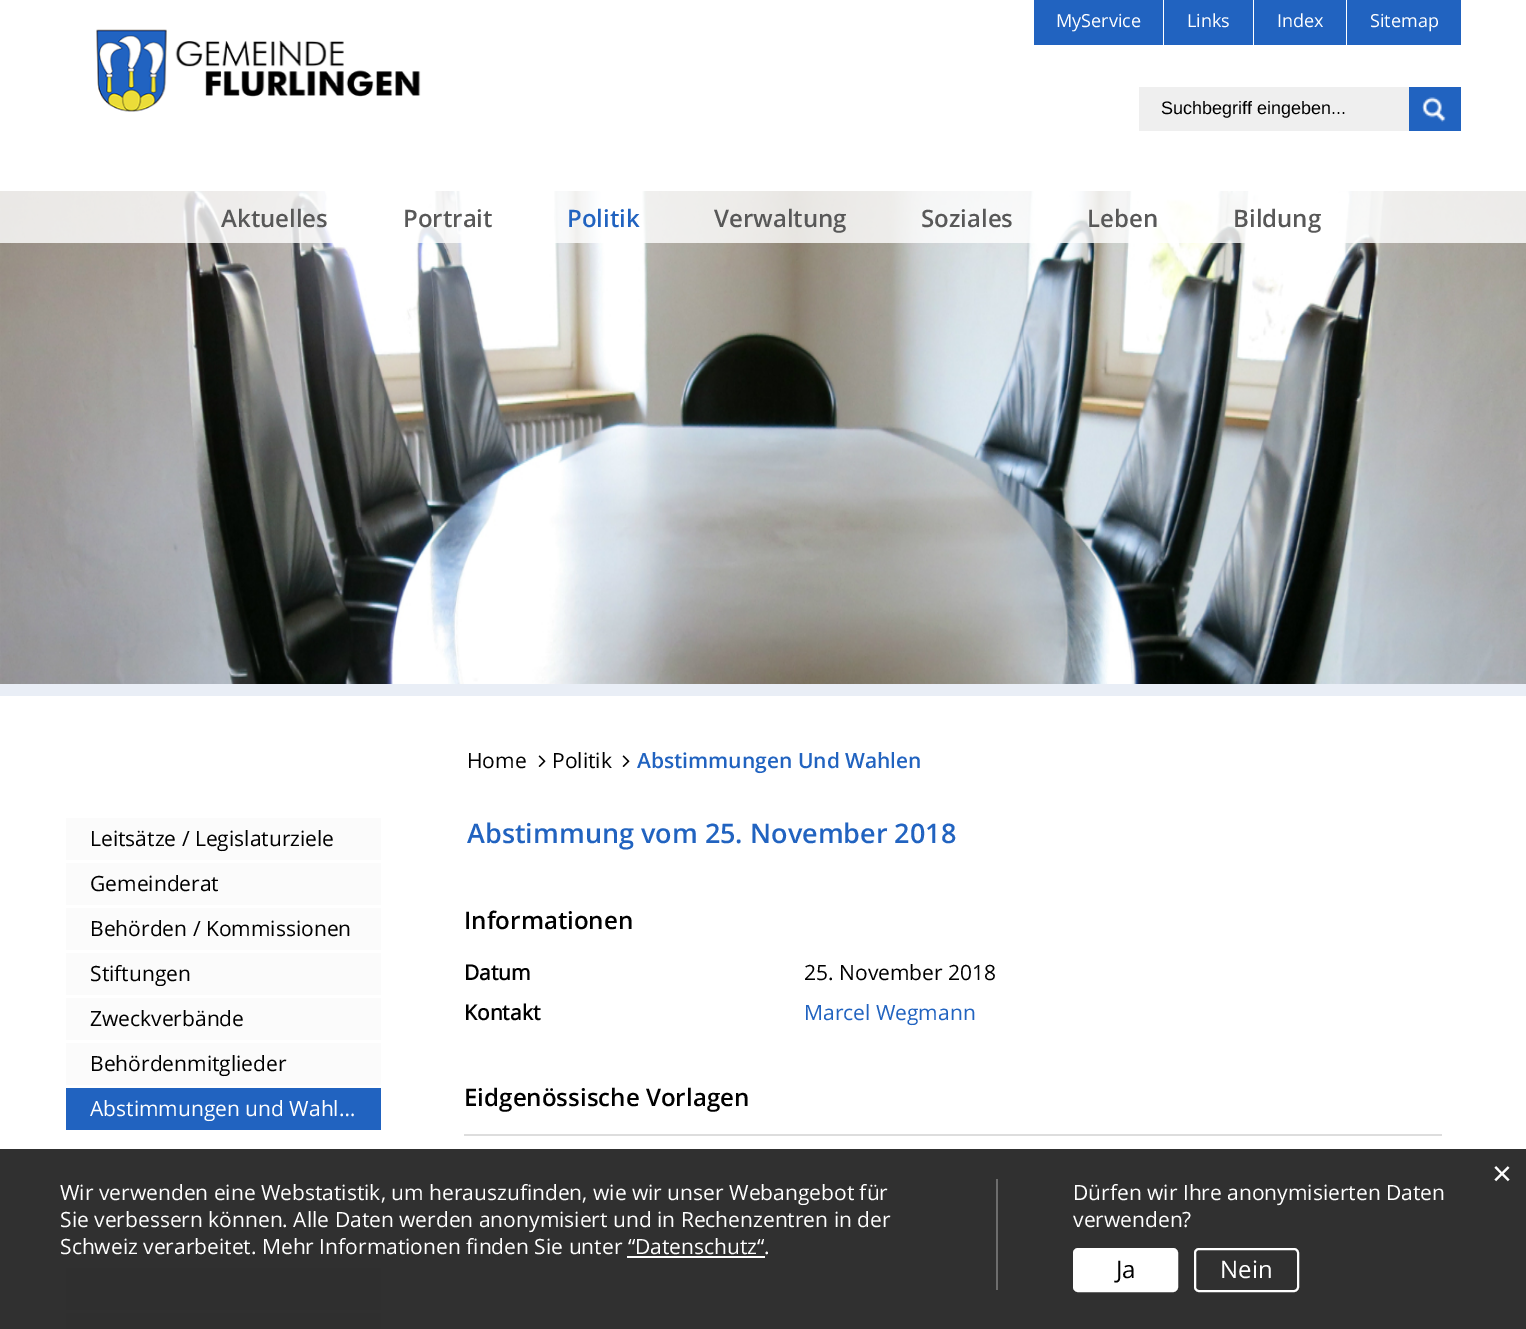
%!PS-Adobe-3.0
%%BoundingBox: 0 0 1526 1329
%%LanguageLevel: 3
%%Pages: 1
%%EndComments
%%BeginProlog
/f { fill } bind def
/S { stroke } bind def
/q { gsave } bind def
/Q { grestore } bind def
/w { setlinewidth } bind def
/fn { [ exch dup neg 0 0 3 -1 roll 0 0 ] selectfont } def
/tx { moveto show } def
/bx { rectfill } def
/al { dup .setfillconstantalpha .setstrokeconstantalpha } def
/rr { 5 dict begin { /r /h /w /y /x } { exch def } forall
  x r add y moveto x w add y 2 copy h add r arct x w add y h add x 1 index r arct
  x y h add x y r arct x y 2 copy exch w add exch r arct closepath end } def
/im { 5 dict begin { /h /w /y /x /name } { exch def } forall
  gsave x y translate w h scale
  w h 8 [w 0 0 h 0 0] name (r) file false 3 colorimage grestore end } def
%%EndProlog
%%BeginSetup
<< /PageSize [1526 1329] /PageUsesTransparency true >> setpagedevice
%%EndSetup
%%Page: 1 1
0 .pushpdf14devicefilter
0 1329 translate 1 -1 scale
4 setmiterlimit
1 setgray
0 0 1526 1329 bx
(image0.raw) 96 29 325 83 im
0.129 0.388 0.753 setrgbcolor
1034 0 129 45 bx
/OpenSans-Regular 18 fn
1 setgray
(MyService) 1056 27 tx
0.129 0.388 0.753 setrgbcolor
1164 0 89 45 bx
1 setgray
(Links) 1187 27 tx
0.129 0.388 0.753 setrgbcolor
1254 0 92 45 bx
1 setgray
(Index) 1277 27 tx
0.129 0.388 0.753 setrgbcolor
1347 0 114 45 bx
1 setgray
(Sitemap) 1370 27 tx
0.937 setgray
1139 87 270 44 bx
/LiberationSans-Regular 18 fn
0 setgray
(Suchbegriff eingeben...) 1161 114 tx
0.129 0.388 0.753 setrgbcolor
1409 87 52 44 bx
(image1.raw) 1422 97 24 25 im
(image2.raw) 0 191 1526 493 im
0.8 al
1 setgray
0 191 1526 52 bx
/OpenSans-SemiBold 24 fn
1 al
0.345 setgray
(Aktuelles) 221 227 tx
(Portrait) 403 227 tx
0.129 0.388 0.753 setrgbcolor
(Politik) 567 227 tx
0.345 setgray
(Verwaltung) 714 227 tx
(Soziales) 921 227 tx
(Leben) 1087 227 tx
(Bildung) 1233 227 tx
0.914 0.933 0.965 setrgbcolor
0 684 1526 12 bx
0.984 setgray
66 818 315 42 bx
/OpenSans-Regular 21 fn
0 setgray
(Leitsätze / Legislaturziele) 90 846 tx
0.984 setgray
66 863 315 42 bx
0 setgray
(Gemeinderat) 90 891 tx
0.984 setgray
66 908 315 42 bx
0 setgray
(Behörden / Kommissionen) 90 936 tx
0.984 setgray
66 953 315 42 bx
0 setgray
(Stiftungen) 90 981 tx
0.984 setgray
66 998 315 42 bx
0 setgray
(Zweckverbände) 90 1026 tx
0.984 setgray
66 1043 315 42 bx
0 setgray
(Behördenmitglieder) 90 1071 tx
0.129 0.388 0.753 setrgbcolor
66 1088 315 42 bx
1 setgray
(Abstimmungen und Wahl…) 90 1116 tx
0.984 setgray
66 1268 315 42 bx
66 1313 315 16 bx
0 setgray
(Home) 467 768 tx
(image3.raw) 538 755 8 12 im
(Politik) 552 768 tx
(image3.raw) 622 755 8 12 im
/OpenSans-SemiBold 21 fn
0.129 0.388 0.753 setrgbcolor
(Abstimmungen Und Wahlen) 637 768 tx
/OpenSans-SemiBold 27 fn
(Abstimmung vom 25. November 2018) 467 843 tx
/OpenSans-SemiBold 24.1 fn
0 setgray
(Informationen) 464 929 tx
/OpenSans-Bold 21 fn
(Datum) 464 980 tx
/OpenSans-Regular 21 fn
(25. November 2018) 804 980 tx
/OpenSans-Bold 21 fn
(Kontakt) 464 1020 tx
/OpenSans-Regular 21 fn
0.129 0.388 0.753 setrgbcolor
(Marcel Wegmann) 804 1020 tx
/OpenSans-SemiBold 24.1 fn
0 setgray
(Eidgenössische Vorlagen) 464 1106 tx
0.867 setgray
464 1134 978 2 bx
0.9 al
0.098 setgray
0 1149 1526 180 bx
/LiberationSans-Regular 34 fn
1 al
1 setgray
(×) 1492 1185 tx
0.427 setgray
996 1179 2 111 bx
/OpenSans-Regular 21 fn
1 setgray
(Wir verwenden eine Webstatistik, um herauszufinden, wie wir unser Webangebot für) 60 1200 tx
(Sie verbessern können. Alle Daten werden anonymisiert und in Rechenzentren in der) 60 1227 tx
(Schweiz verarbeitet. Mehr Informationen finden Sie unter “Datenschutz“.) 60 1254 tx
627 1256 138 2 bx
(Dürfen wir Ihre anonymisierten Daten) 1073 1200 tx
(verwenden?) 1073 1227 tx
1074 1249 103 42 4 rr q f Q
2 w
S
/OpenSans-Regular 24 fn
0 setgray
(Ja) 1116 1278 tx
1 setgray
1195 1249 103 42 4 rr S
(Nein) 1220 1278 tx
.poppdf14devicefilter showpage
%%EOF
